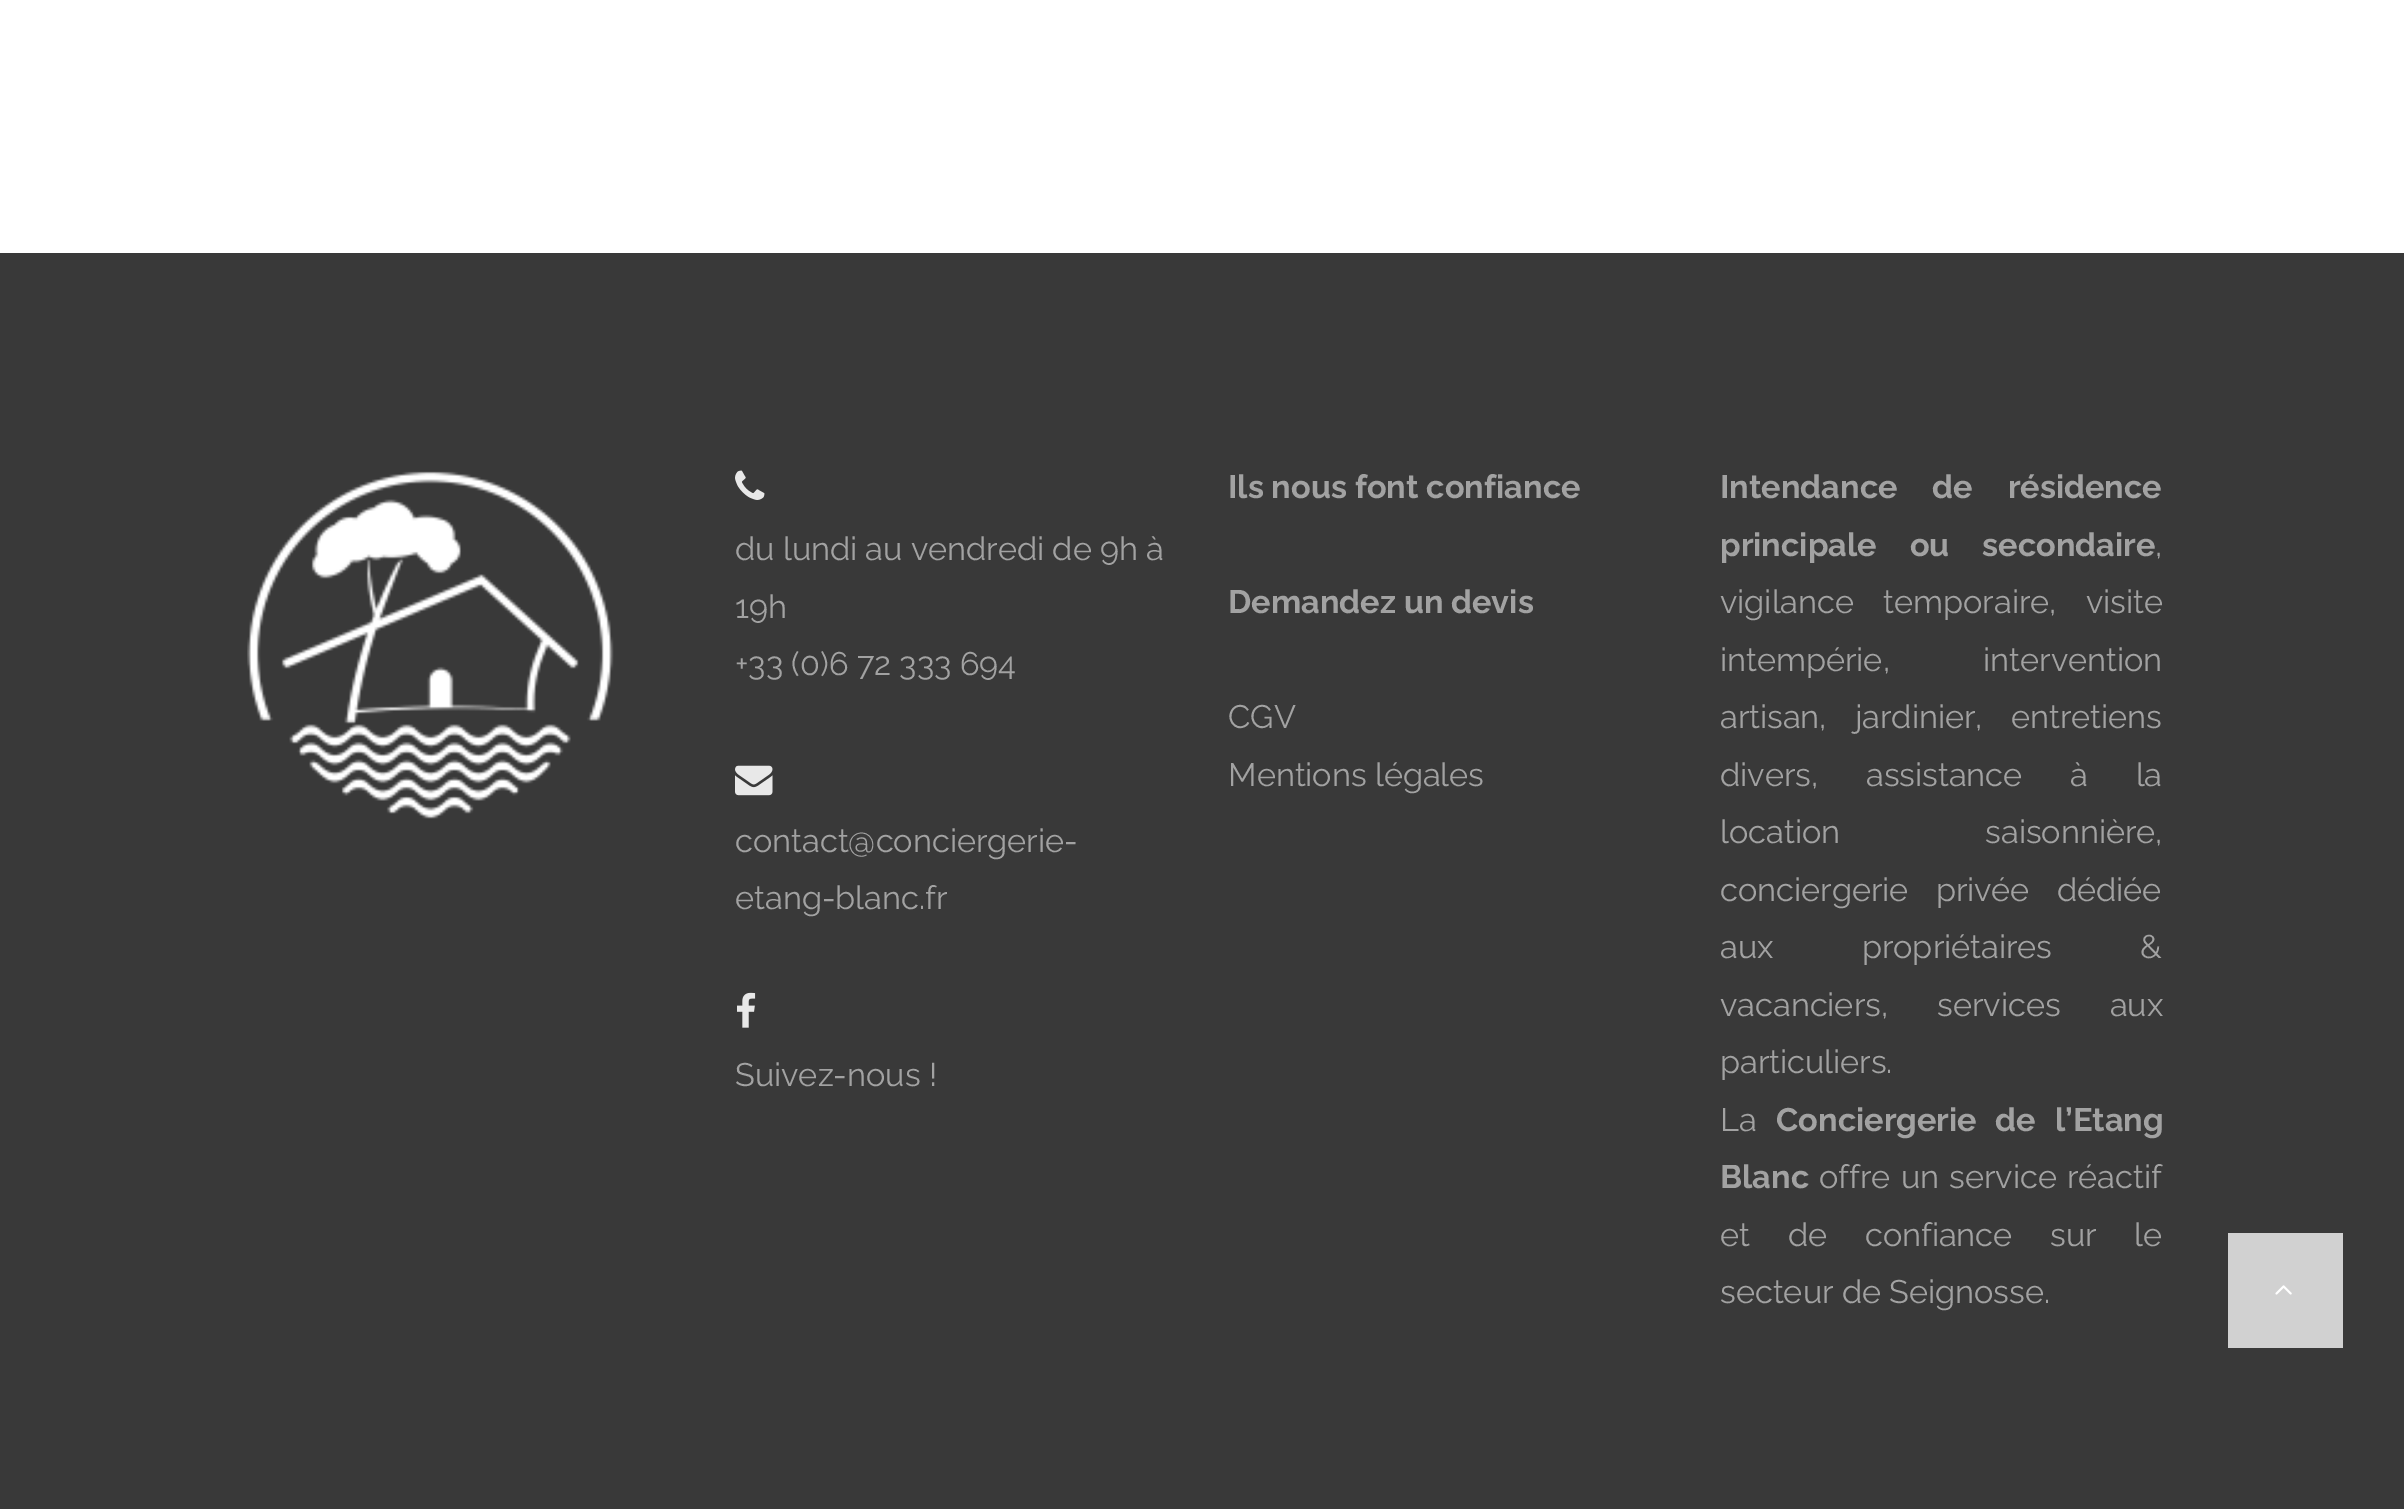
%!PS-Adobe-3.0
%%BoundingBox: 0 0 2404 1509
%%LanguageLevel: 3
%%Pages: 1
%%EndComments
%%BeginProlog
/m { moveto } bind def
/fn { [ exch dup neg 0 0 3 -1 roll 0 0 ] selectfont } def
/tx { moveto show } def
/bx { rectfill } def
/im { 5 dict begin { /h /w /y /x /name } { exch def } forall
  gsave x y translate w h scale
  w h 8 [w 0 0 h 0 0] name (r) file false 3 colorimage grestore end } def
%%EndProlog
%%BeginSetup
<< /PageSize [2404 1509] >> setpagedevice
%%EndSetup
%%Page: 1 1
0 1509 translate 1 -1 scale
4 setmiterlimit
1 setgray
0 0 2404 1509 bx
0.224 setgray
0 253 2404 1256 bx
(image0.raw) 247 471 367 348 im
(image1.raw) 735 470 30 30 im
/Raleway-Regular 32.5 fn
0.635 setgray
(du lundi au vendredi de 9h à) 735 560 tx
(19h) 735 618 tx
(+33 \(0\)6 72 333 694) 735 675 tx
(image2.raw) 735 765 38 31 im
(contact@conciergerie-) 735 852 tx
(etang-blanc.fr) 735 909 tx
(image3.raw) 737 992 19 36 im
(Suivez-nous !) 735 1086 tx
/Raleway-Bold 32.5 fn
(Ils nous font confiance) 1228 498 tx
(Demandez un devis) 1228 613 tx
/Raleway-Regular 32.5 fn
(CGV) 1228 728 tx
(Mentions légales) 1228 786 tx
/Raleway-Bold 32.5 fn
1720 498 m 27 0 32 (Intendance de résidence) widthshow
1720 556 m 25 0 32 (principale ou secondaire) widthshow
/Raleway-Regular 32.5 fn
(,) 2155 556 tx
1720 613 m 21 0 32 (vigilance temporaire, visite) widthshow
1720 671 m 85 0 32 (intempérie, intervention) widthshow
1720 728 m 20 0 32 (artisan, jardinier, entretiens) widthshow
1720 786 m 39.5 0 32 (divers, assistance à la) widthshow
1720 843 m 137 0 32 (location saisonnière,) widthshow
1720 901 m 19 0 32 (conciergerie privée dédiée) widthshow
1720 958 m 80 0 32 (aux propriétaires &) widthshow
1720 1016 m 41 0 32 (vacanciers, services aux) widthshow
(particuliers.) 1720 1073 tx
(La) 1720 1131 tx
/Raleway-Bold 32.5 fn
1776 1131 m 11 0 32 (Conciergerie de l’Etang) widthshow
(Blanc) 1720 1188 tx
/Raleway-Regular 32.5 fn
1819 1188 m 2 0 32 (offre un service réactif) widthshow
1720 1246 m 29.5 0 32 (et de confiance sur le) widthshow
(secteur de Seignosse.) 1720 1303 tx
0.82 setgray
2228 1233 115 115 bx
(image4.raw) 2275 1285 17 10 im
showpage
%%EOF
